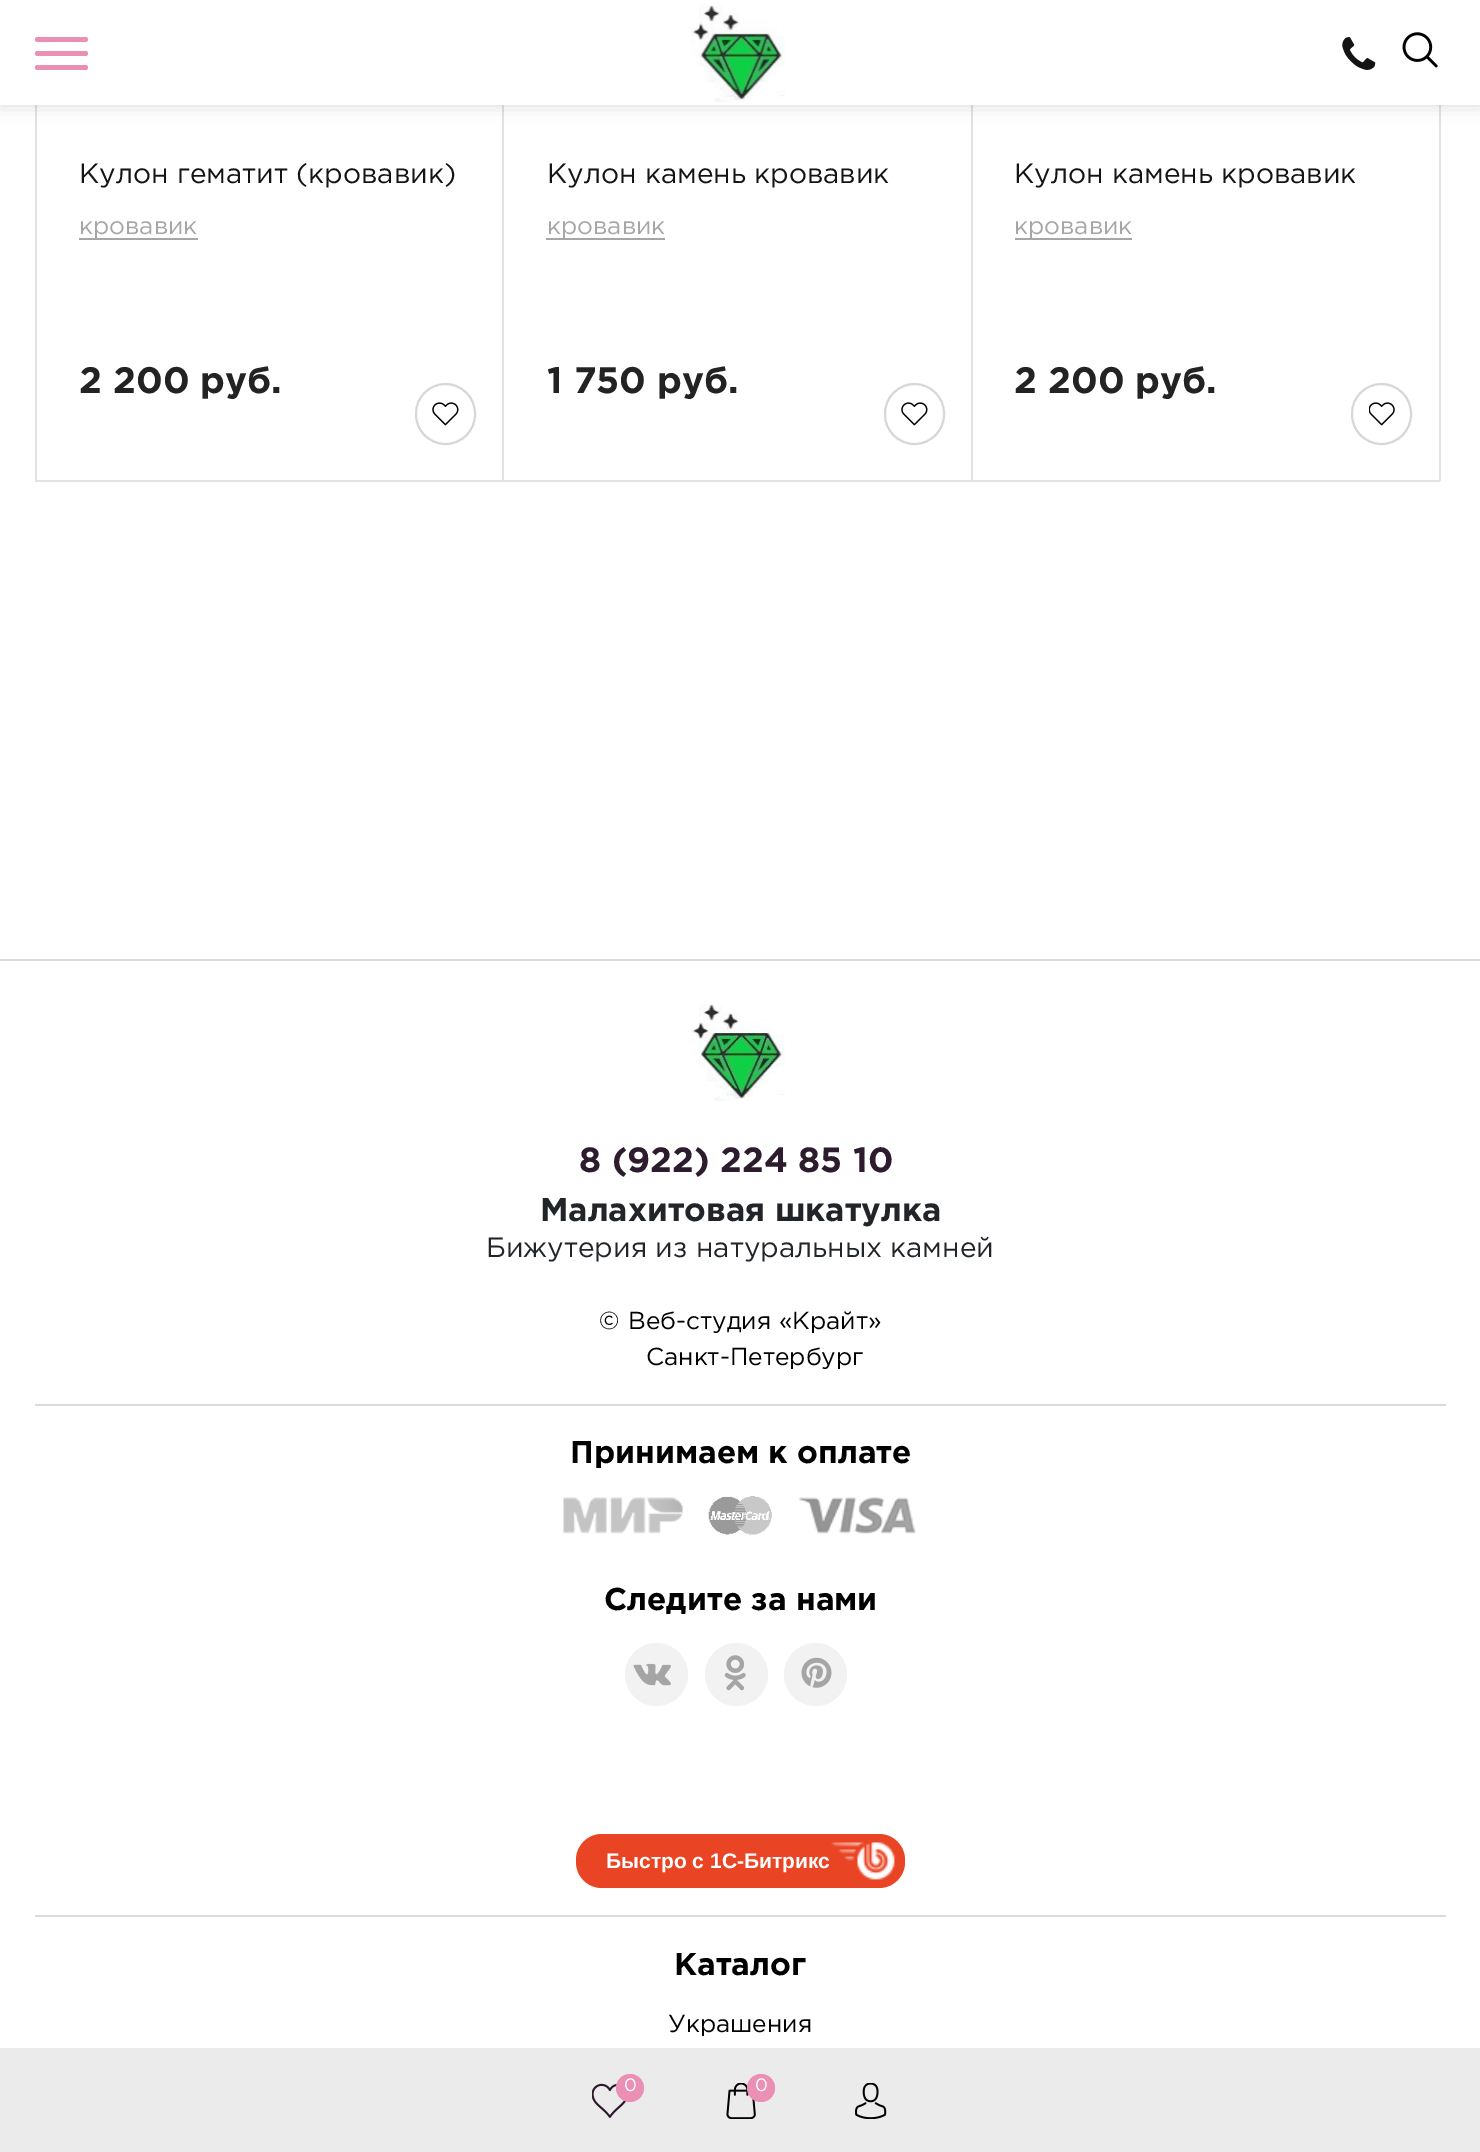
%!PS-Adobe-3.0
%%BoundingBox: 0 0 1480 2152
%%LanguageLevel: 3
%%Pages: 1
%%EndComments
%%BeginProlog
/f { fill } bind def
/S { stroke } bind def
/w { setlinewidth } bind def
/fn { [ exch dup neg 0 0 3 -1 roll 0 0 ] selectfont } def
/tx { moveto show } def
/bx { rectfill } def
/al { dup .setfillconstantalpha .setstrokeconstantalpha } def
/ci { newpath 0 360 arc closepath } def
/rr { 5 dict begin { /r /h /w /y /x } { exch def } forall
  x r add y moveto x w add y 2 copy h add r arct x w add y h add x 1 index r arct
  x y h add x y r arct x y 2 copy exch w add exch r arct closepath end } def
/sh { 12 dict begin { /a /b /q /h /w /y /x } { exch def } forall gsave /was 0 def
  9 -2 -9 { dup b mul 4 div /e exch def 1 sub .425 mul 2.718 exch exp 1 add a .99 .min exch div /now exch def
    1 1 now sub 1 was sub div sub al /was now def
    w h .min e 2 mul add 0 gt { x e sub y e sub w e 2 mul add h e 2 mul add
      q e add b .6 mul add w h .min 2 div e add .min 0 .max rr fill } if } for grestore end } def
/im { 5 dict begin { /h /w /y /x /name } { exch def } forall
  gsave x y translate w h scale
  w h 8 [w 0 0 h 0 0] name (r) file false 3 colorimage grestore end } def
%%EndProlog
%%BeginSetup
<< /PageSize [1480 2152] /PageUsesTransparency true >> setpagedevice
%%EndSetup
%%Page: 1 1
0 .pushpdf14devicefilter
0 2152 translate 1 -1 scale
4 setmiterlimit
1 setgray
0 0 1480 2152 bx
0.886 setgray
35 105 2 376 bx
502 105 2 376 bx
35 480 469 2 bx
/Gotham-Regular 28 fn
0.078 setgray
(Кулон гематит \(кровавик\)) 79 183 tx
/Gotham-Regular 24.5 fn
0.651 setgray
(кровавик) 79 234 tx
79 238 119 2 bx
/Gotham-Bold 36.75 fn
0.137 setgray
(2 200 руб.) 79 393 tx
0.843 setgray
2 w
416 384 59 60 29.5 rr S
(image0.raw) 432 402 27 24 im
0.886 setgray
971 105 2 376 bx
502 480 471 2 bx
/Gotham-Regular 28 fn
0.078 setgray
(Кулон камень кровавик) 547 183 tx
/Gotham-Regular 24.5 fn
0.651 setgray
(кровавик) 547 234 tx
546 238 119 2 bx
/Gotham-Bold 36.75 fn
0.137 setgray
(1 750 руб.) 547 393 tx
0.843 setgray
885 384 59 60 29.5 rr S
(image0.raw) 901 402 27 24 im
0.886 setgray
1439 105 2 376 bx
971 480 469 2 bx
/Gotham-Regular 28 fn
0.078 setgray
(Кулон камень кровавик) 1014 183 tx
/Gotham-Regular 24.5 fn
0.651 setgray
(кровавик) 1014 234 tx
1015 238 117 2 bx
/Gotham-Bold 36.75 fn
0.137 setgray
(2 200 руб.) 1014 393 tx
0.843 setgray
1352 384 59 60 29.5 rr S
(image1.raw) 1369 402 26 24 im
0.855 setgray
0 959 1480 2 bx
35 1404 1411 2 bx
(image2.raw) 691 1004 94 97 im
/Gotham-Bold 35 fn
0.176 0.11 0.18 setrgbcolor
(8 \(922\) 224 85 10) 579 1172 tx
/Gotham-Bold 32.75 fn
0.129 0.145 0.161 setrgbcolor
(Малахитовая шкатулка) 540 1221 tx
/Gotham-Regular 28 fn
(Бижутерия из натуральных камней) 486 1257 tx
/Gotham-Regular 24.5 fn
0 setgray
(©) 599 1329 tx
(Веб-студия «Крайт») 628 1329 tx
(Санкт-Петербург) 646 1365 tx
0.855 setgray
35 1915 1411 2 bx
/Gotham-Bold 31.5 fn
0 setgray
(Принимаем к оплате) 570 1463 tx
(image3.raw) 563 1497 120 37 im
(image4.raw) 708 1496 64 39 im
(image5.raw) 799 1497 117 37 im
(Следите за нами) 604 1610 tx
0.949 setgray
656.5 1674.5 31.5 ci f
(image6.raw) 633 1663 38 23 im
736.5 1674.5 31.5 ci f
(image7.raw) 724 1655 22 36 im
815.5 1674.5 31.5 ci f
(image8.raw) 801 1657 31 31 im
0.914 0.271 0.141 setrgbcolor
576 1834 329 54 26 rr f
(image9.raw) 831 1842 64 38 im
/LiberationSans-Bold 21 fn
1 setgray
(Быстро с 1С-Битрикс) 606 1868 tx
/Gotham-Bold 31.5 fn
0 setgray
(Каталог) 674 1975 tx
/Gotham-Regular 24.5 fn
(Украшения) 668 2032 tx
0 0 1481 105 0 9 0.15 sh
1 setgray
0 0 1480 105 bx
(image10.raw) 1342 37 34 33 im
(image11.raw) 1402 32 36 36 im
0.922 0.565 0.71 setrgbcolor
35 51 53 5 2.5 rr f
35 37 53 5 2.5 rr f
35 65 53 5 2.5 rr f
(image12.raw) 691 5 94 97 im
0.922 setgray
0 2048 1480 104 bx
(image13.raw) 592 2083 35 35 im
0.922 0.565 0.71 setrgbcolor
630 2088 14 ci f
/Gotham-Regular 18 fn
1 setgray
(0) 624 2091 tx
(image14.raw) 726 2083 30 36 im
0.922 0.565 0.71 setrgbcolor
761 2088 14 ci f
1 setgray
(0) 755 2091 tx
(image15.raw) 855 2083 32 36 im
.poppdf14devicefilter showpage
%%EOF
